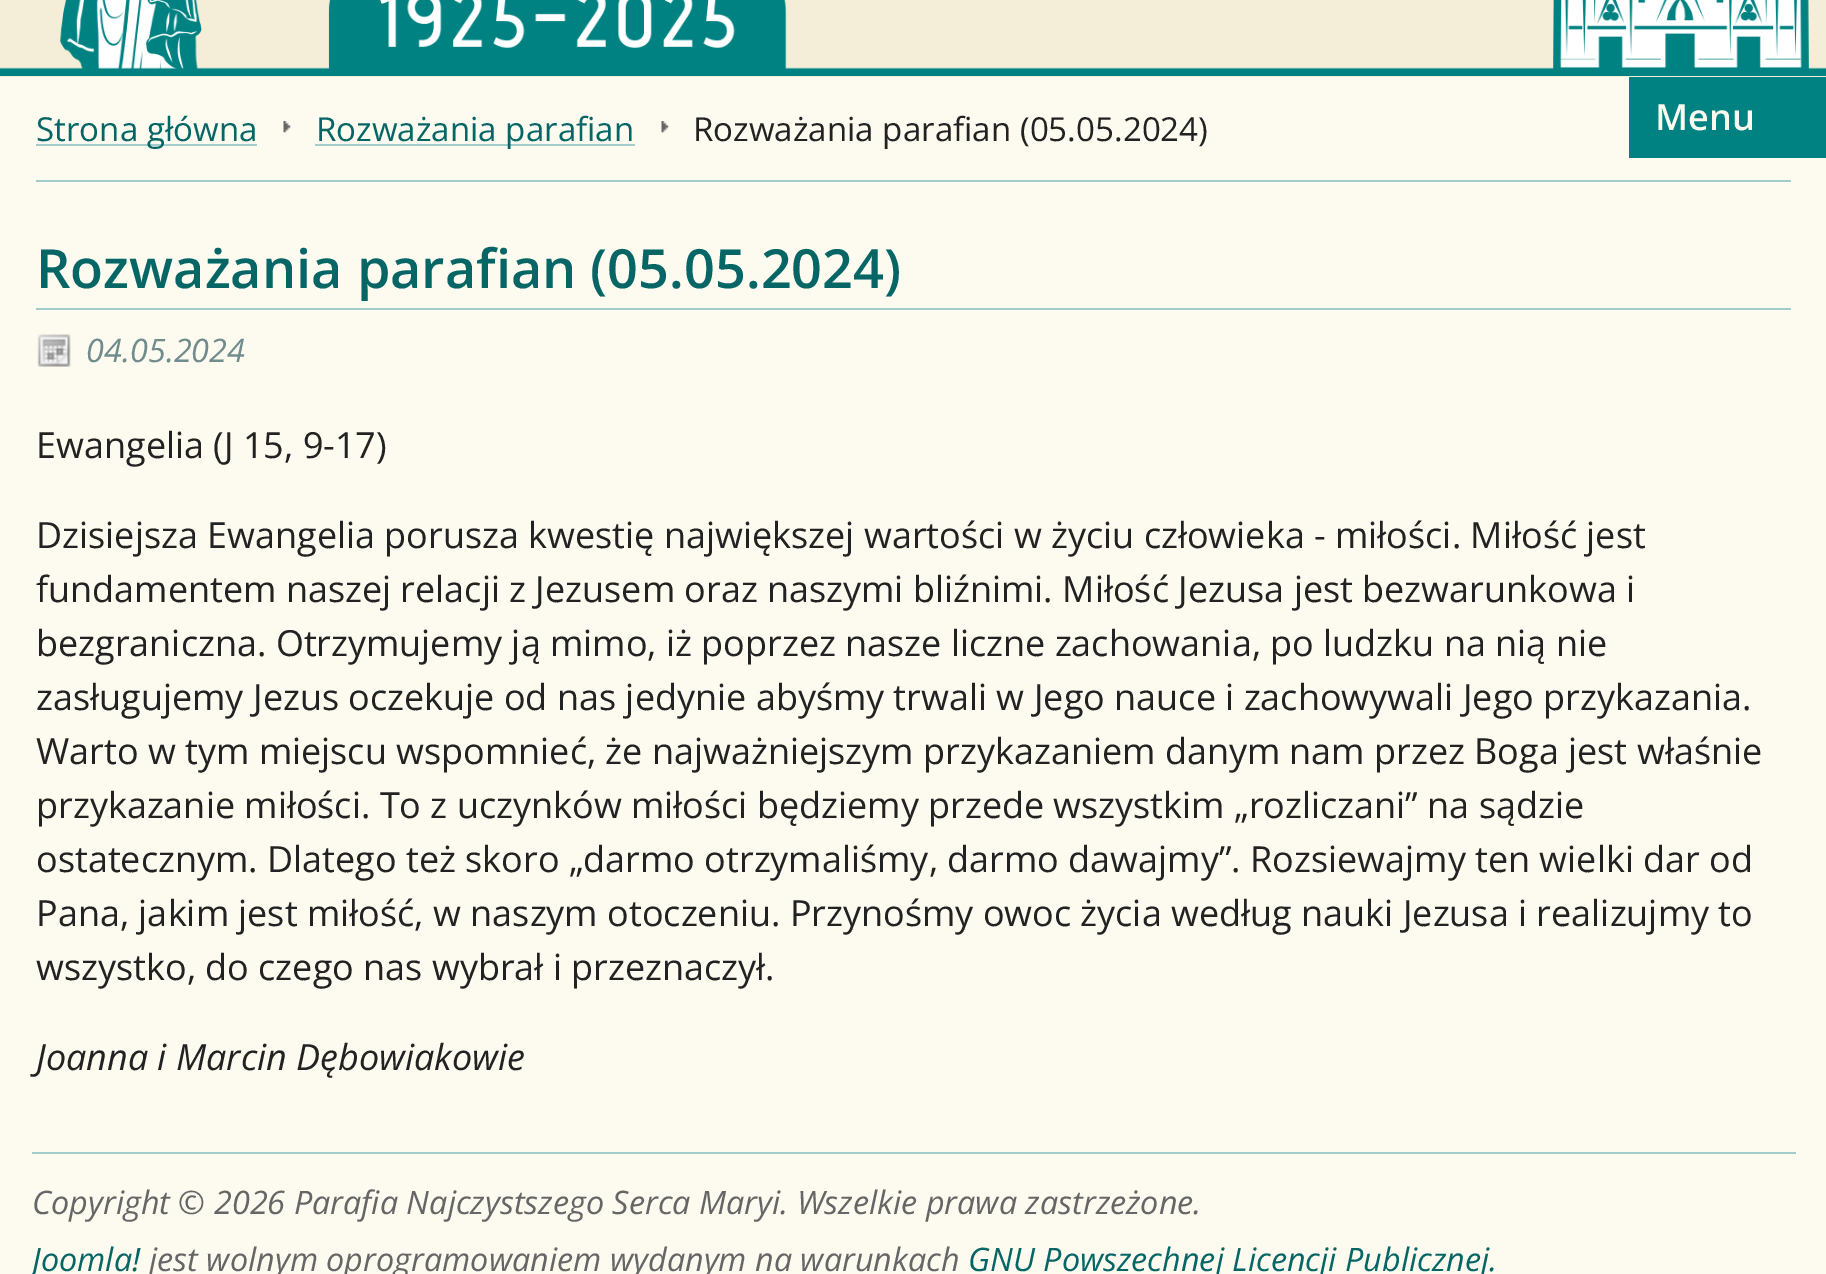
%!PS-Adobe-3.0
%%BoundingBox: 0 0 1826 1274
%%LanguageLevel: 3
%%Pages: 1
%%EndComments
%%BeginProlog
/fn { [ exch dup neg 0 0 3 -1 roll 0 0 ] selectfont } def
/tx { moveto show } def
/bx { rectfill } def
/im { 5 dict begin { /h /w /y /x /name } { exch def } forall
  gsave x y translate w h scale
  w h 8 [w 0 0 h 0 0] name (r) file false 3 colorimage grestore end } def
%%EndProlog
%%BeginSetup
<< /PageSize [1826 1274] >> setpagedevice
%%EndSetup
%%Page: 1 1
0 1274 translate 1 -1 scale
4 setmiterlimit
0.992 0.98 0.937 setrgbcolor
0 0 1826 1274 bx
0.957 0.933 0.847 setrgbcolor
0 0 1826 77 bx
(image0.raw) 0 0 1826 76 im
0 0.51 0.51 setrgbcolor
1629 77 197 81 bx
/OpenSans-SemiBold 36 fn
0.992 0.98 0.937 setrgbcolor
(Menu) 1655 130 tx
0.639 0.8 0.8 setrgbcolor
36 180 1755 2 bx
36 144 221 2 bx
/OpenSans-Regular 33.1 fn
0.024 0.4 0.4 setrgbcolor
(Strona główna) 36 141 tx
(image1.raw) 283 121 8 12 im
0.639 0.8 0.8 setrgbcolor
315 144 320 2 bx
0.024 0.4 0.4 setrgbcolor
(Rozważania parafian) 316 141 tx
(image1.raw) 661 121 8 12 im
0.133 setgray
(Rozważania parafian \(05.05.2024\)) 693 141 tx
0.639 0.8 0.8 setrgbcolor
36 308 1755 2 bx
/OpenSans-SemiBold 54 fn
0.024 0.4 0.4 setrgbcolor
(Rozważania parafian \(05.05.2024\)) 36 288 tx
(image2.raw) 37 334 34 33 im
/OpenSans-Italic 32.4 fn
0.439 0.549 0.549 setrgbcolor
(04.05.2024) 86 362 tx
/OpenSans-Regular 36 fn
0.133 setgray
(Ewangelia \(J 15, 9-17\)) 36 458 tx
(Dzisiejsza Ewangelia porusza kwestię największej wartości w życiu człowieka - miłości. Miłość jest) 36 548 tx
(fundamentem naszej relacji z Jezusem oraz naszymi bliźnimi. Miłość Jezusa jest bezwarunkowa i) 36 602 tx
(bezgraniczna. Otrzymujemy ją mimo, iż poprzez nasze liczne zachowania, po ludzku na nią nie) 36 656 tx
(zasługujemy Jezus oczekuje od nas jedynie abyśmy trwali w Jego nauce i zachowywali Jego przykazania.) 36 710 tx
(Warto w tym miejscu wspomnieć, że najważniejszym przykazaniem danym nam przez Boga jest właśnie) 36 764 tx
(przykazanie miłości. To z uczynków miłości będziemy przede wszystkim „rozliczani” na sądzie) 36 818 tx
(ostatecznym. Dlatego też skoro „darmo otrzymaliśmy, darmo dawajmy”. Rozsiewajmy ten wielki dar od) 36 872 tx
(Pana, jakim jest miłość, w naszym otoczeniu. Przynośmy owoc życia według nauki Jezusa i realizujmy to) 36 926 tx
(wszystko, do czego nas wybrał i przeznaczył.) 36 980 tx
/OpenSans-Italic 36 fn
(Joanna i Marcin Dębowiakowie) 36 1070 tx
0.639 0.8 0.8 setrgbcolor
32 1152 1764 2 bx
/OpenSans-Italic 32.4 fn
0.4 setgray
(Copyright © 2026 Parafia Najczystszego Serca Maryi. Wszelkie prawa zastrzeżone.) 32 1214 tx
0.024 0.4 0.4 setrgbcolor
(Joomla!) 32 1271 tx
0.4 setgray
(jest wolnym oprogramowaniem wydanym na warunkach) 149 1271 tx
0.024 0.4 0.4 setrgbcolor
(GNU Powszechnej Licencji Publicznej.) 968 1271 tx
showpage
%%EOF
